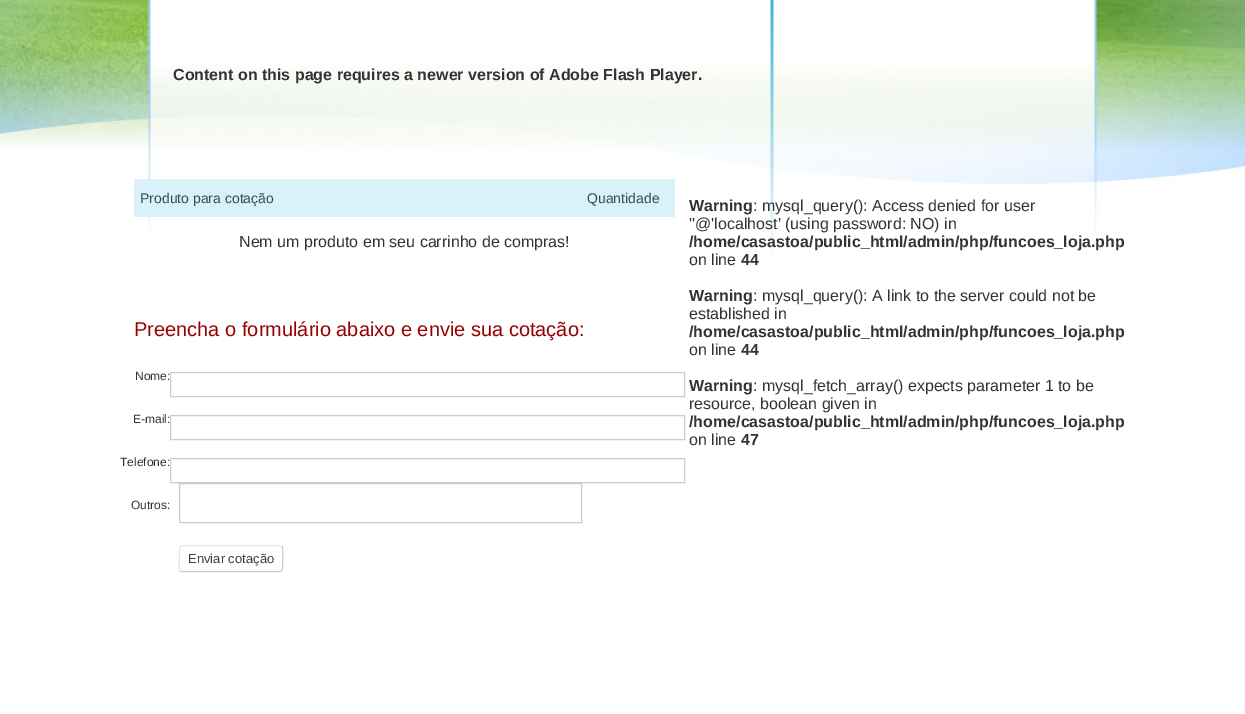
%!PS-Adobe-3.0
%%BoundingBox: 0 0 1245 714
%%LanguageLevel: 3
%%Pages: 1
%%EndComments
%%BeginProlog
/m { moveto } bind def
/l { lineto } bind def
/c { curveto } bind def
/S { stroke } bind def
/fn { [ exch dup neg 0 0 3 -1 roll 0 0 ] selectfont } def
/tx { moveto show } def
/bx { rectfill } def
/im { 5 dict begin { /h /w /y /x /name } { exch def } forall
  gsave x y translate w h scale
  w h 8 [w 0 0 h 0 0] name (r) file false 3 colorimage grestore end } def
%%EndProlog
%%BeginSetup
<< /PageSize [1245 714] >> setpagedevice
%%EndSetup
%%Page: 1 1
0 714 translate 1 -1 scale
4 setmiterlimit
1 setgray
0 0 1245 714 bx
(image0.raw) 0 0 1245 252 im
/LiberationSans-Bold 16 fn
0.2 setgray
(Content on this page requires a newer version of Adobe Flash Player.) 173 80 tx
0.855 0.945 0.976 setrgbcolor
134 179 541 38 bx
/LiberationSans-Regular 14 fn
0.153 0.322 0.322 setrgbcolor
(Produto para cotação) 140 203 tx
(Quantidade) 587 203 tx
/LiberationSans-Regular 16 fn
0.2 setgray
(Nem um produto em seu carrinho de compras!) 239 247 tx
/LiberationSans-Regular 20 fn
0.6 0 0 setrgbcolor
(Preencha o formulário abaixo e envie sua cotação:) 134 336 tx
/LiberationSans-Regular 12 fn
0.2 setgray
(Nome:) 135 380 tx
0.8 setgray
170.5 372.5 514 24 rectstroke
0.2 setgray
(E-mail:) 133 423 tx
0.8 setgray
170.5 415.5 514 24 rectstroke
0.2 setgray
(Telefone:) 120 466 tx
0.8 setgray
170.5 458.5 514 24 rectstroke
0.2 setgray
(Outros:) 131 509 tx
0.8 setgray
179.5 483.5 402 39 rectstroke
282 546 m 283.5 548 282.5 559.5 282.5 562 c 282.5 563.5 284 571.5 280 571.5 c 182 571.5 l 180 571 l S
0.902 setgray
180 571 m 178.5 569 179.5 557.5 179.5 555 c 179.5 553.5 178 545.5 182 545.5 c 280 545.5 l 282 546 l S
/LiberationSans-Regular 13 fn
0.251 setgray
(Enviar cotação) 188 563 tx
/LiberationSans-Bold 16 fn
0.2 setgray
(Warning) 689 211 tx
/LiberationSans-Regular 16 fn
(: mysql_query\(\): Access denied for user) 753 211 tx
(''@'localhost' \(using password: NO\) in) 689 229 tx
/LiberationSans-Bold 16 fn
(/home/casastoa/public_html/admin/php/funcoes_loja.php) 689 247 tx
/LiberationSans-Regular 16 fn
(on line) 689 265 tx
/LiberationSans-Bold 16 fn
(44) 741 265 tx
(Warning) 689 301 tx
/LiberationSans-Regular 16 fn
(: mysql_query\(\): A link to the server could not be) 753 301 tx
(established in) 689 319 tx
/LiberationSans-Bold 16 fn
(/home/casastoa/public_html/admin/php/funcoes_loja.php) 689 337 tx
/LiberationSans-Regular 16 fn
(on line) 689 355 tx
/LiberationSans-Bold 16 fn
(44) 741 355 tx
(Warning) 689 391 tx
/LiberationSans-Regular 16 fn
(: mysql_fetch_array\(\) expects parameter 1 to be) 753 391 tx
(resource, boolean given in) 689 409 tx
/LiberationSans-Bold 16 fn
(/home/casastoa/public_html/admin/php/funcoes_loja.php) 689 427 tx
/LiberationSans-Regular 16 fn
(on line) 689 445 tx
/LiberationSans-Bold 16 fn
(47) 741 445 tx
showpage
%%EOF
